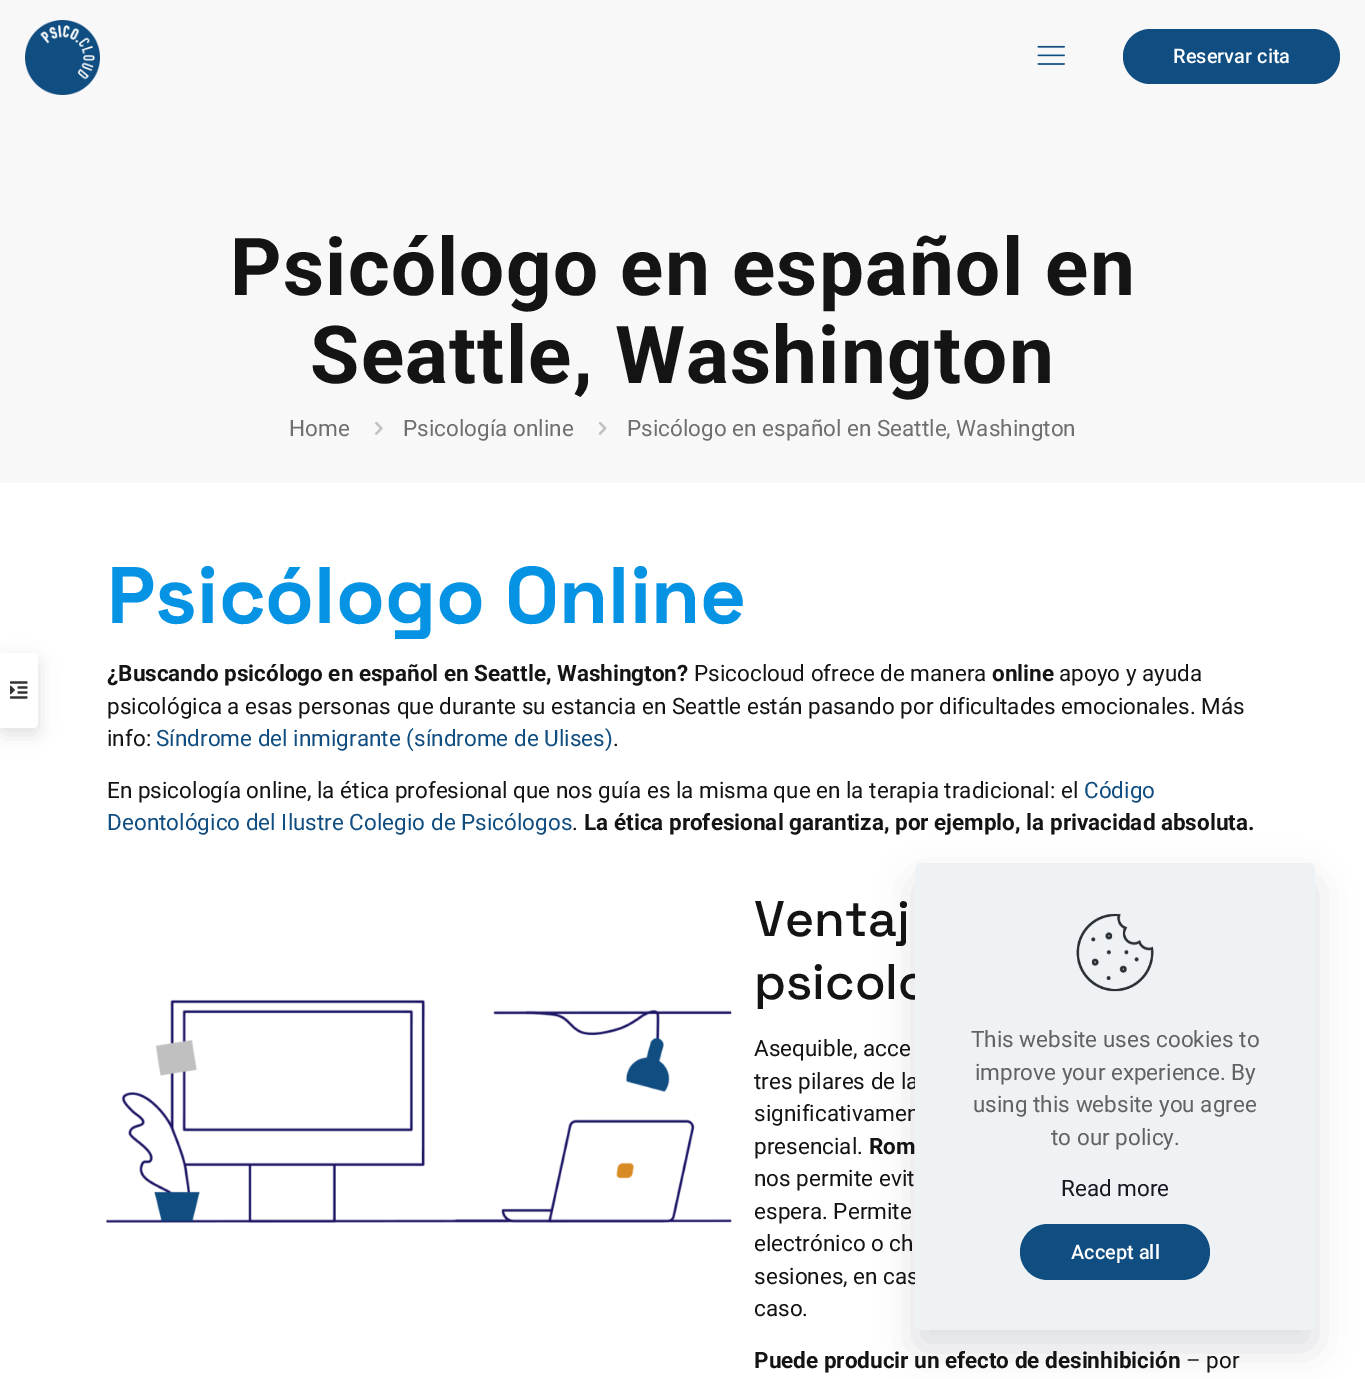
%!PS-Adobe-3.0
%%BoundingBox: 0 0 1365 1379
%%LanguageLevel: 3
%%Pages: 1
%%EndComments
%%BeginProlog
/m { moveto } bind def
/l { lineto } bind def
/c { curveto } bind def
/h { closepath } bind def
/f { fill } bind def
/fn { [ exch dup neg 0 0 3 -1 roll 0 0 ] selectfont } def
/tx { moveto show } def
/bx { rectfill } def
/al { dup .setfillconstantalpha .setstrokeconstantalpha } def
/rr { 5 dict begin { /r /h /w /y /x } { exch def } forall
  x r add y moveto x w add y 2 copy h add r arct x w add y h add x 1 index r arct
  x y h add x y r arct x y 2 copy exch w add exch r arct closepath end } def
/sh { 12 dict begin { /a /b /q /h /w /y /x } { exch def } forall gsave /was 0 def
  9 -2 -9 { dup b mul 4 div /e exch def 1 sub .425 mul 2.718 exch exp 1 add a .99 .min exch div /now exch def
    1 1 now sub 1 was sub div sub al /was now def
    w h .min e 2 mul add 0 gt { x e sub y e sub w e 2 mul add h e 2 mul add
      q e add b .6 mul add w h .min 2 div e add .min 0 .max rr fill } if } for grestore end } def
/im { 5 dict begin { /h /w /y /x /name } { exch def } forall
  gsave x y translate w h scale
  w h 8 [w 0 0 h 0 0] name (r) file false 3 colorimage grestore end } def
%%EndProlog
%%BeginSetup
<< /PageSize [1365 1379] /PageUsesTransparency true >> setpagedevice
%%EndSetup
%%Page: 1 1
0 .pushpdf14devicefilter
0 1379 translate 1 -1 scale
4 setmiterlimit
1 setgray
0 0 1365 1379 bx
0.031 0.031 0.055 setrgbcolor
0 659 38 75 5 9.5 0.13 sh
1 setgray
0 653 m 33 653 l 36 653 38 655 38 658 c 38 723 l 38 726 36 728 33 728 c 0 728 l h f
(image0.raw) 10 681 18 18 im
0.973 setgray
0 0 1365 483 bx
(image1.raw) 25 20 75 75 im
(image2.raw) 1037 45 28 20 im
0.063 0.302 0.506 setrgbcolor
1123 29 217 55 27.5 rr f
/Roboto-Medium 20 fn
1 setgray
(Reservar cita) 1173 63 tx
/Roboto-Bold 80 fn
0.078 setgray
230 295 m 1.25 0 (Psicólogo en español en) ashow
310 383 m 1.25 0 (Seattle, Washington) ashow
/Roboto-Regular 22.5 fn
0.435 setgray
(Home) 289 436 tx
(image3.raw) 375 421 8 14 im
(Psicología online) 403 436 tx
(image4.raw) 598 421 9 14 im
(Psicólogo en español en Seattle, Washington) 627 436 tx
/SpaceGrotesk-Bold 80 fn
0.024 0.576 0.89 setrgbcolor
(Psicólogo Online) 107 623 tx
/Roboto-Bold 22.5 fn
0.078 setgray
(¿Buscando psicólogo en español en Seattle, Washington?) 107 681 tx
/Roboto-Regular 22.5 fn
(Psicocloud ofrece de manera) 694 681 tx
/Roboto-Bold 22.5 fn
(online) 992 681 tx
/Roboto-Regular 22.5 fn
(apoyo y ayuda) 1059 681 tx
(psicológica a esas personas que durante su estancia en Seattle están pasando por dificultades emocionales. Más) 107 714 tx
(info:) 107 746 tx
0.063 0.302 0.506 setrgbcolor
(Síndrome del inmigrante \(síndrome de Ulises\)) 156 746 tx
0.078 setgray
(.) 613 746 tx
(En psicología online, la ética profesional que nos guía es la misma que en la terapia tradicional: el) 107 798 tx
0.063 0.302 0.506 setrgbcolor
(Código) 1084 798 tx
(Deontológico del Ilustre Colegio de Psicólogos) 107 830 tx
0.078 setgray
(.) 572 830 tx
/Roboto-Bold 22.5 fn
(La ética profesional garantiza, por ejemplo, la privacidad absoluta.) 584 830 tx
/SpaceGrotesk-Medium 50 fn
(Ventaj) 754 936 tx
(psicolo) 754 999 tx
(image5.raw) 106 999 626 224 im
/Roboto-Regular 22.5 fn
(Asequible, acce) 754 1056 tx
(tres pilares de la) 754 1089 tx
(significativamen) 754 1121 tx
(presencial.) 754 1154 tx
/Roboto-Bold 22.5 fn
(Rom) 869 1154 tx
/Roboto-Regular 22.5 fn
(nos permite evit) 754 1186 tx
(espera. Permite) 754 1219 tx
(electrónico o ch) 754 1251 tx
(sesiones, en cas) 754 1284 tx
(caso.) 754 1316 tx
/Roboto-Bold 22.5 fn
(Puede producir un efecto de desinhibición) 754 1368 tx
/Roboto-Regular 22.5 fn
(– por) 1186 1368 tx
0.004 0.027 0.153 setrgbcolor
915 881 400 468 6 19 0.13 sh
0.933 0.949 0.961 setrgbcolor
915 863 400 467 6 rr f
(image6.raw) 1076 913 78 79 im
0.384 setgray
(This website uses cookies to) 971 1047 tx
(improve your experience. By) 975 1080 tx
(using this website you agree) 973 1112 tx
(to our policy.) 1051 1145 tx
0.086 0.098 0.133 setrgbcolor
(Read more) 1061 1196 tx
0.063 0.302 0.506 setrgbcolor
1020 1224 190 56 28 rr f
/Roboto-Medium 20 fn
1 setgray
(Accept all) 1071 1259 tx
.poppdf14devicefilter showpage
%%EOF
